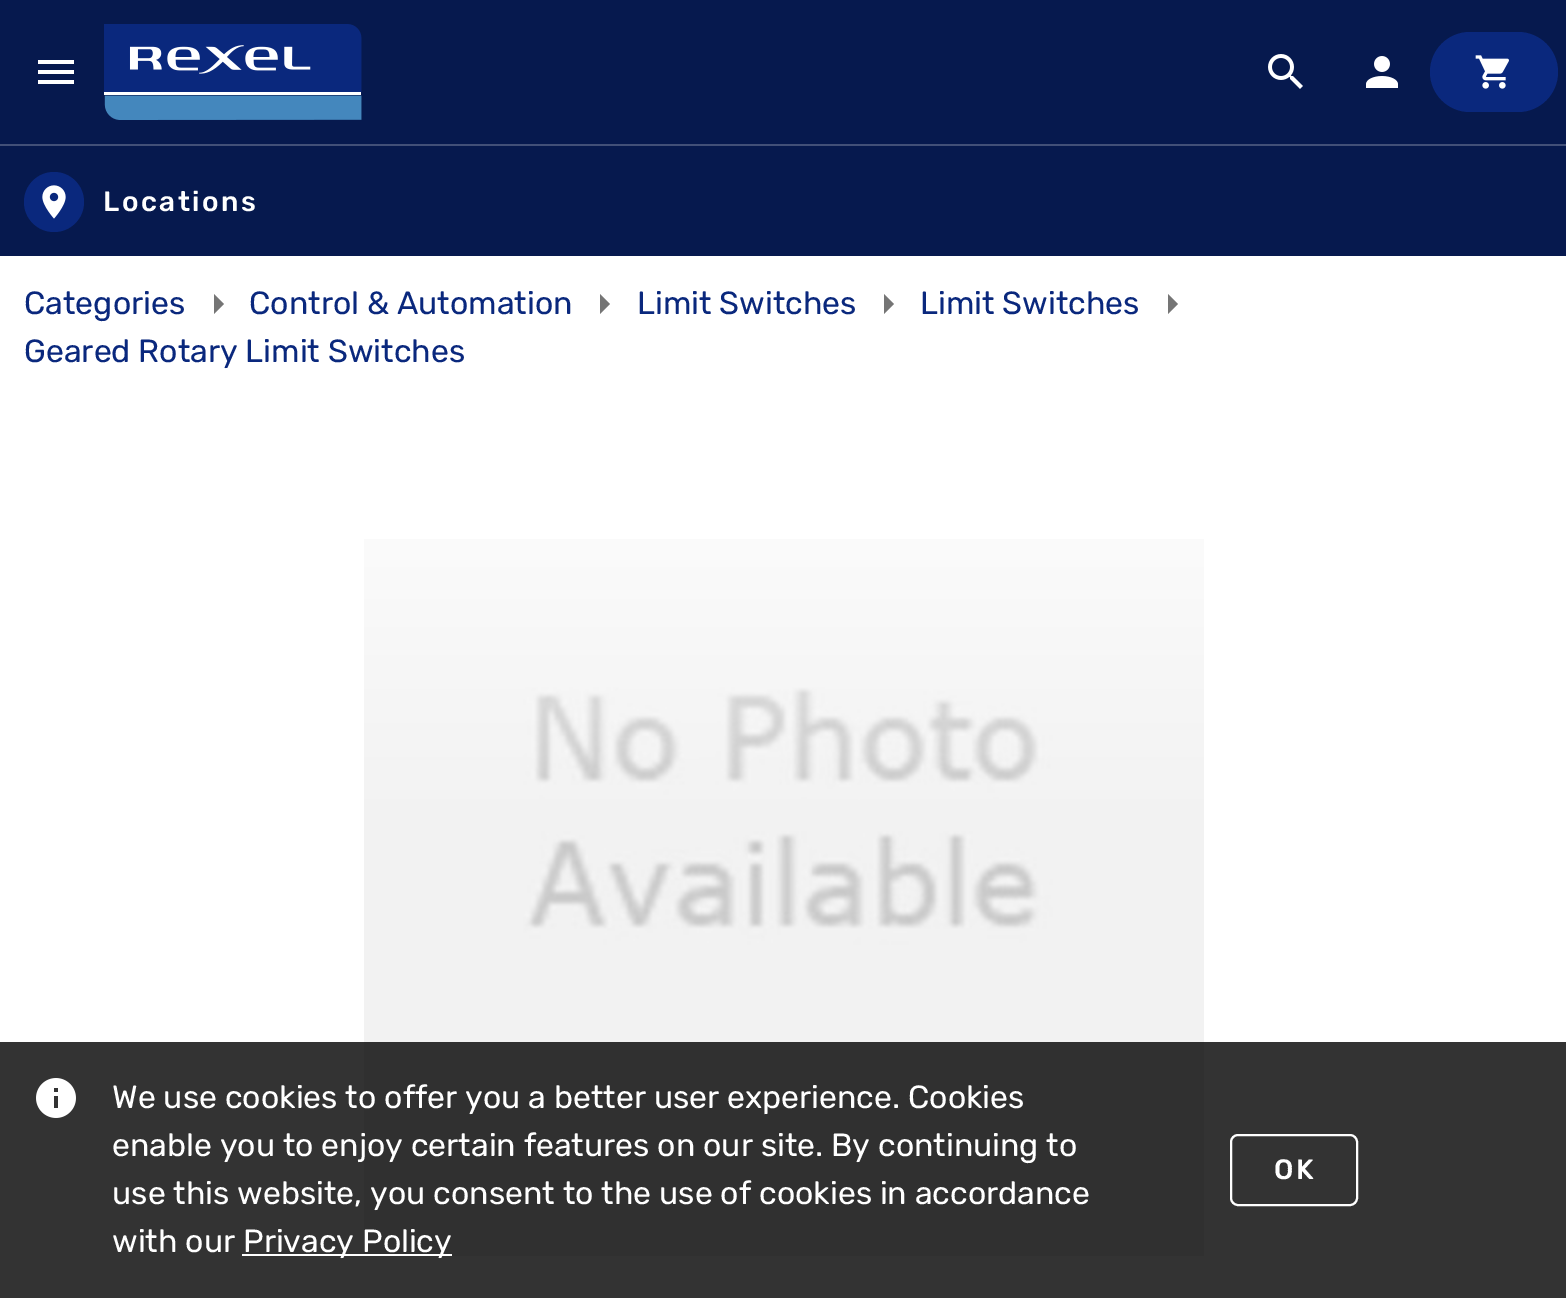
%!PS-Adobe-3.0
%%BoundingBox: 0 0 1566 1298
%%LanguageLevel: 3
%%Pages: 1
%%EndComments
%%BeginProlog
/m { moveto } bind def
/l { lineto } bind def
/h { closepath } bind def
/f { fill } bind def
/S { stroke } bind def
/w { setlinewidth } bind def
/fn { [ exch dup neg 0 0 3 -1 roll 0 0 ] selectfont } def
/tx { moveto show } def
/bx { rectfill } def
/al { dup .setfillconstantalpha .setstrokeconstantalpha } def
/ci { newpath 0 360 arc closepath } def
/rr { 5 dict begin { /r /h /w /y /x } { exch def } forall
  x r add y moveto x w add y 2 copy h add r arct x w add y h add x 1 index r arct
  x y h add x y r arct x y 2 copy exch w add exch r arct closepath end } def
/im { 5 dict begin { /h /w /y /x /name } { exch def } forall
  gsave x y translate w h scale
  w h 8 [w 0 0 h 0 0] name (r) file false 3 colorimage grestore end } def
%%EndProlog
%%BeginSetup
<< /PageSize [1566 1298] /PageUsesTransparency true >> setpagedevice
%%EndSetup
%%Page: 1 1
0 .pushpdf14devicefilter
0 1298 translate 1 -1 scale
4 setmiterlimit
1 setgray
0 0 1566 1298 bx
0.024 0.098 0.306 setrgbcolor
0 0 1566 256 bx
(image0.raw) 38 60 36 24 im
(image1.raw) 104 24 258 96 im
(image2.raw) 1268 54 35 35 im
(image3.raw) 1366 56 32 32 im
0.039 0.157 0.49 setrgbcolor
1430 32 128 80 40 rr f
(image4.raw) 1475 55 34 34 im
0.259 0.314 0.471 setrgbcolor
0 144 1566 2 bx
0.039 0.157 0.49 setrgbcolor
54 202 30 ci f
(image5.raw) 42 185 24 34 im
/Rubik-Medium 28 fn
1 setgray
103 211 m 2.5 0 (Locations) ashow
/Rubik-Regular 32 fn
0.039 0.157 0.49 setrgbcolor
(Categories) 24 314 tx
0.459 setgray
214 314 m 224 304 l 214 294 l h f
0.039 0.157 0.49 setrgbcolor
(Control & Automation) 249 314 tx
0.459 setgray
600 314 m 610 304 l 600 294 l h f
0.039 0.157 0.49 setrgbcolor
(Limit Switches) 637 314 tx
0.459 setgray
884 314 m 894 304 l 884 294 l h f
0.039 0.157 0.49 setrgbcolor
(Limit Switches) 920 314 tx
0.459 setgray
1168 314 m 1178 304 l 1168 294 l h f
0.039 0.157 0.49 setrgbcolor
(Geared Rotary Limit Switches) 24 362 tx
(image6.raw) 364 539 840 717 im
0.8 al
0 setgray
0 1042 1566 256 bx
1 al
(image7.raw) 36 1078 40 40 im
1 setgray
(We use cookies to offer you a better user experience. Cookies) 112 1108 tx
(enable you to enjoy certain features on our site. By continuing to) 112 1156 tx
(use this website, you consent to the use of cookies in accordance) 112 1204 tx
(with our) 112 1252 tx
242 1254 210 2 bx
(Privacy Policy) 243 1252 tx
2 w
1231 1135 126 70 7 rr S
/Rubik-Medium 28 fn
1274 1179 m 2.5 0 (OK) ashow
.poppdf14devicefilter showpage
%%EOF
